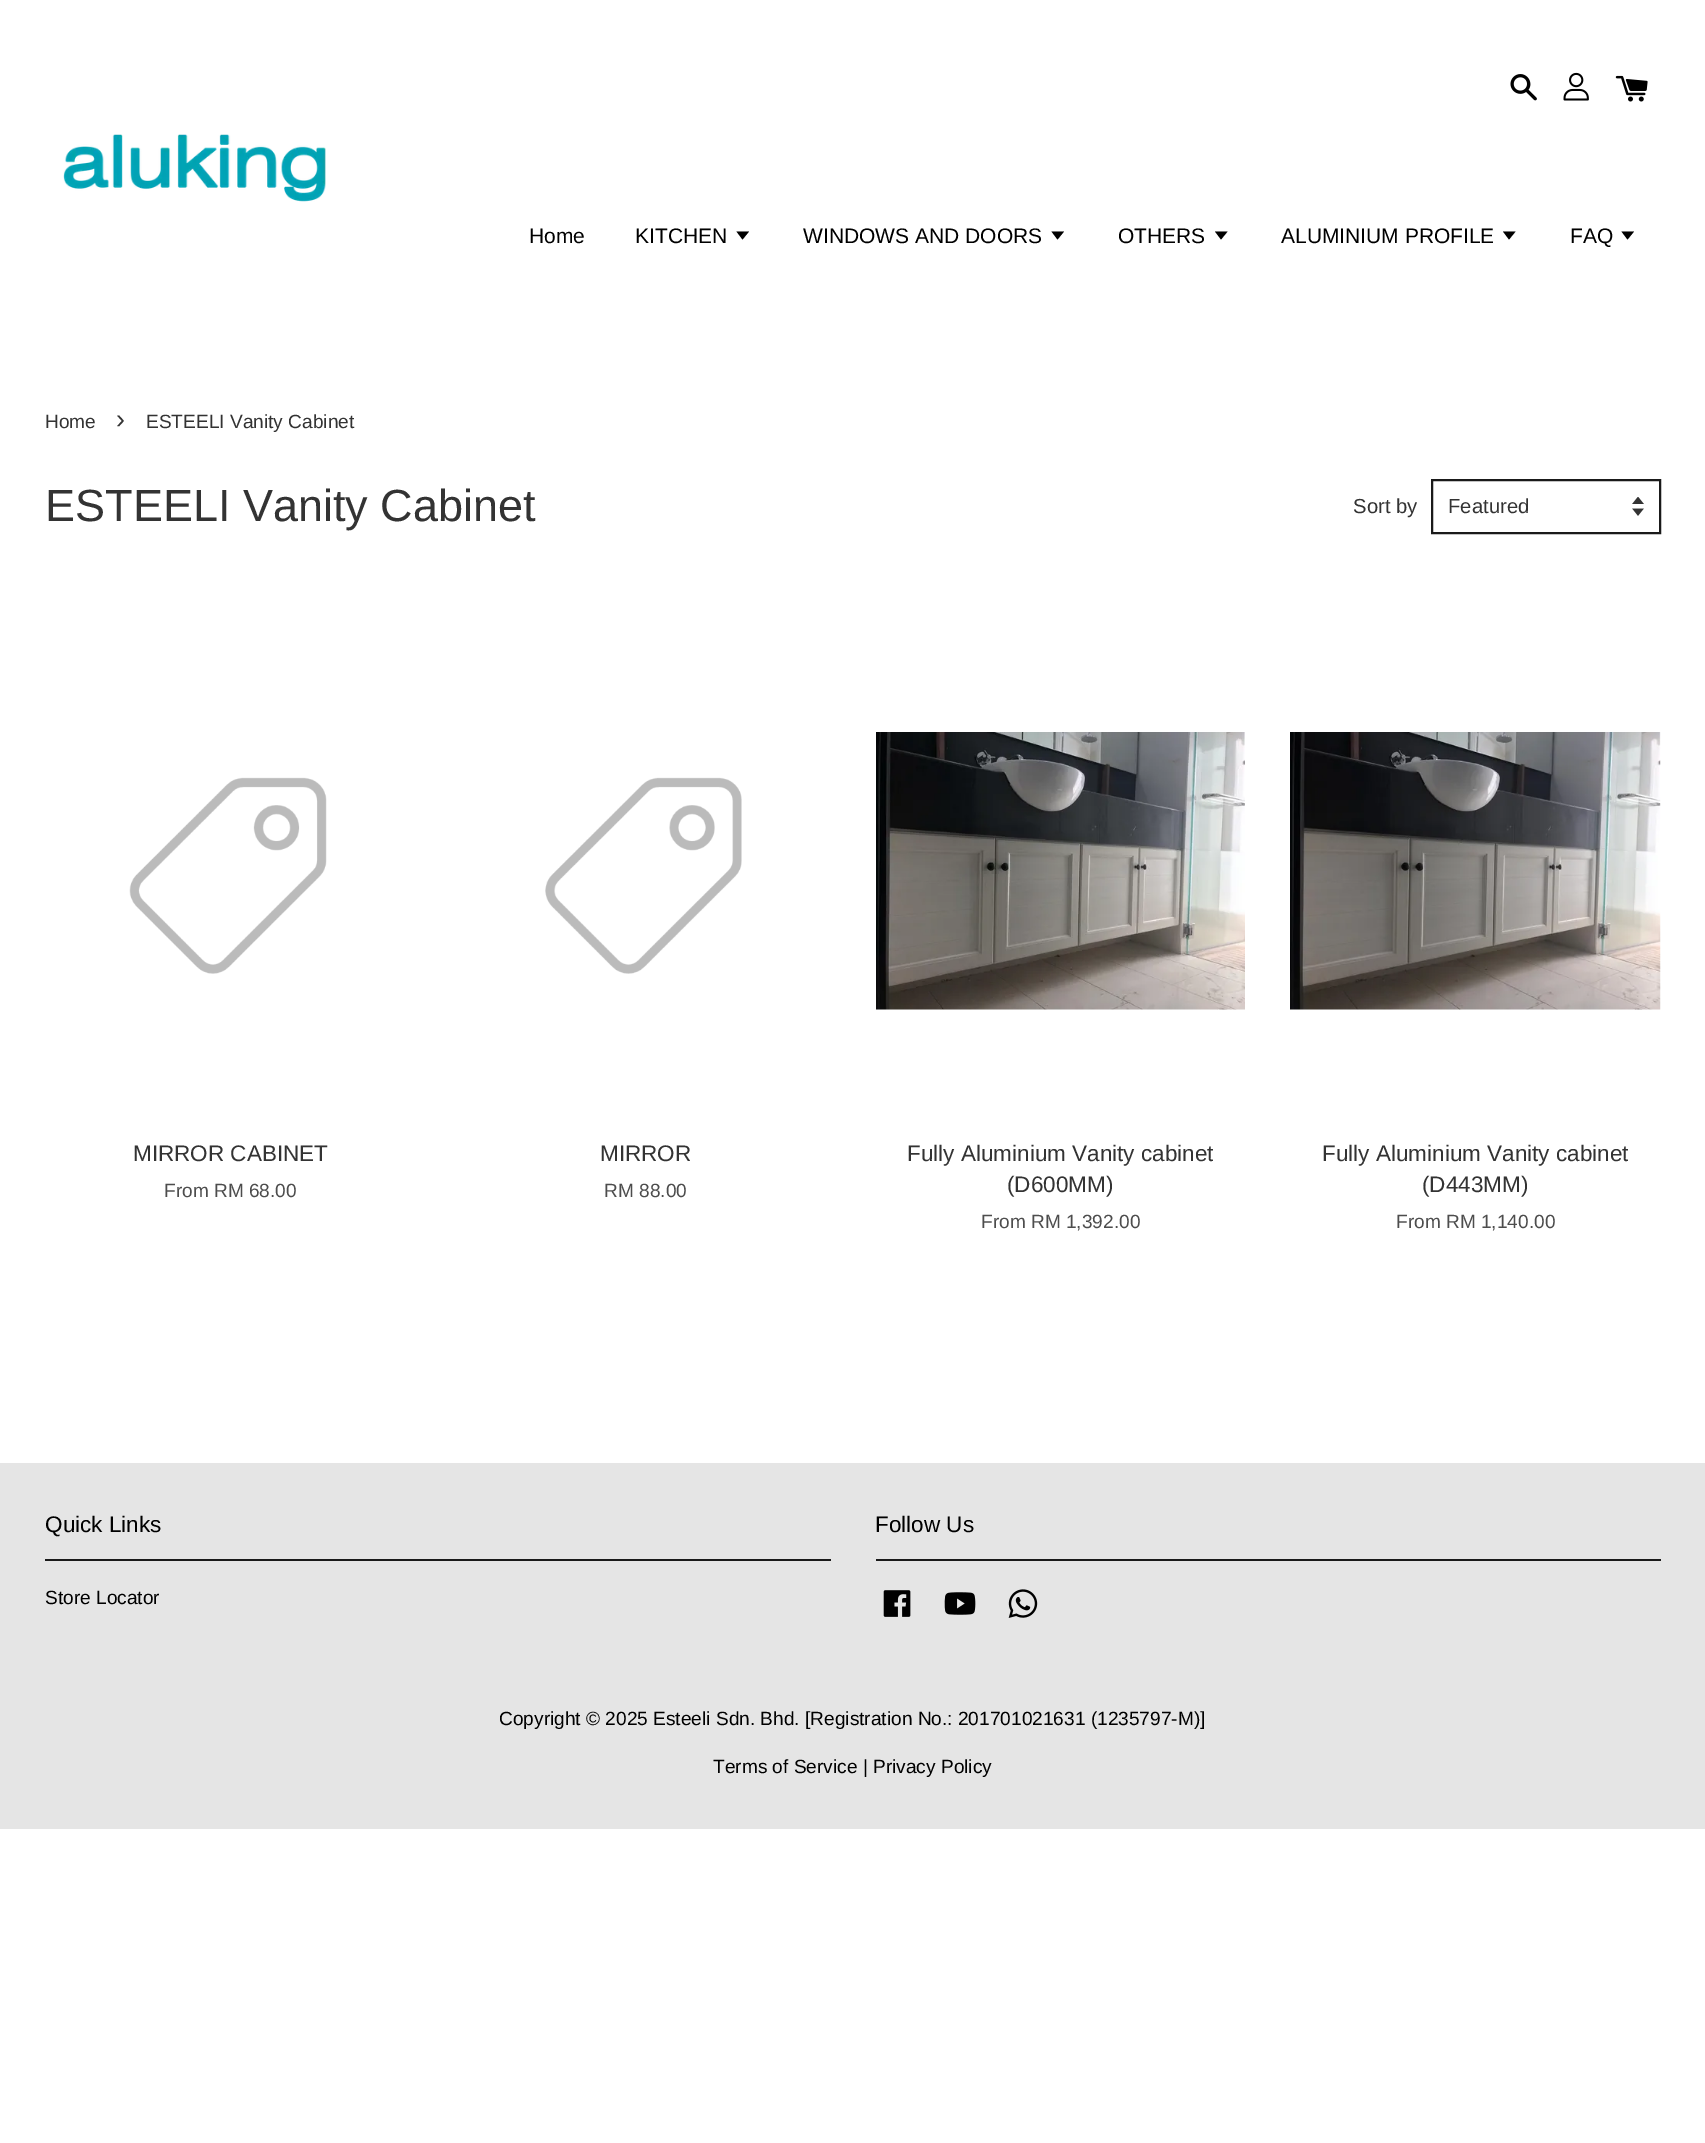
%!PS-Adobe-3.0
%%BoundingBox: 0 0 1705 2143
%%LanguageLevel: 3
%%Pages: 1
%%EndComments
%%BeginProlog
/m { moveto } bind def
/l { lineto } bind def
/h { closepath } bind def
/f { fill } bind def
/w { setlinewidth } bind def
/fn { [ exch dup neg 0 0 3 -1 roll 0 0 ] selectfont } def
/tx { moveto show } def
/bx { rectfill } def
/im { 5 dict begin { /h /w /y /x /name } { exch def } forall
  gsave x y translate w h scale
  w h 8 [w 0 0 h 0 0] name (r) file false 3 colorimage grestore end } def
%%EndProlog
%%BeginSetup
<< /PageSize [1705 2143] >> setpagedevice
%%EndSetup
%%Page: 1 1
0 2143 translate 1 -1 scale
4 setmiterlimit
1 setgray
0 0 1705 2143 bx
(image0.raw) 63 134 263 68 im
(image1.raw) 1510 74 27 27 im
(image2.raw) 1563 72 26 29 im
(image3.raw) 1615 75 33 27 im
/LiberationSans-Regular 21 fn
0 setgray
(Home) 529 243 tx
(KITCHEN) 635 243 tx
736.5 231.5 m 742.5 239.5 l 749 231.5 l h f
(WINDOWS AND DOORS) 803 243 tx
1051.5 231.5 m 1057.5 239.5 l 1064 231.5 l h f
(OTHERS) 1118 243 tx
1215 231.5 m 1221 239.5 l 1227.5 231.5 l h f
(ALUMINIUM PROFILE) 1281 243 tx
1503 231.5 m 1509 239.5 l 1515.5 231.5 l h f
(FAQ) 1570 243 tx
1621.5 231.5 m 1627.5 239.5 l 1634 231.5 l h f
/LiberationSans-Regular 19.1 fn
0.2 setgray
(Home) 45 428 tx
/LiberationSans-Regular 27 fn
(›) 116 428 tx
/LiberationSans-Regular 19.1 fn
(ESTEELI Vanity Cabinet) 146 428 tx
/LiberationSans-Regular 45 fn
(ESTEELI Vanity Cabinet) 45 521 tx
/LiberationSans-Regular 20.25 fn
(Sort by) 1353 513 tx
(image4.raw) 1632 497 12 19 im
0.102 setgray
2 w
1432 480 228 53 rectstroke
0.2 setgray
(Featured) 1448 513 tx
(image5.raw) 129 777 198 197 im
/LiberationSans-Regular 22.5 fn
(MIRROR CABINET) 133 1161 tx
/LiberationSans-Regular 19.1 fn
0.302 setgray
(From RM 68.00) 164 1197 tx
(image6.raw) 545 777 197 197 im
/LiberationSans-Regular 22.5 fn
0.2 setgray
(MIRROR) 600 1161 tx
/LiberationSans-Regular 19.1 fn
0.302 setgray
(RM 88.00) 604 1197 tx
(image7.raw) 876 732 369 278 im
/LiberationSans-Regular 22.5 fn
0.2 setgray
(Fully Aluminium Vanity cabinet) 907 1161 tx
(\(D600MM\)) 1007 1192 tx
/LiberationSans-Regular 19.1 fn
0.302 setgray
(From RM 1,392.00) 981 1228 tx
(image8.raw) 1290 732 371 278 im
/LiberationSans-Regular 22.5 fn
0.2 setgray
(Fully Aluminium Vanity cabinet) 1322 1161 tx
(\(D443MM\)) 1422 1192 tx
/LiberationSans-Regular 19.1 fn
0.302 setgray
(From RM 1,140.00) 1396 1228 tx
0.898 setgray
0 1463 1705 366 bx
0.102 setgray
45 1559 786 2 bx
/LiberationSans-Regular 22.5 fn
0 setgray
(Quick Links) 45 1532 tx
/LiberationSans-Regular 19.1 fn
(Store Locator) 45 1604 tx
0.102 setgray
876 1559 785 2 bx
/LiberationSans-Regular 22.5 fn
0 setgray
(Follow Us) 875 1532 tx
(image9.raw) 883 1590 28 27 im
(image10.raw) 944 1592 32 23 im
(image11.raw) 1008 1589 30 29 im
/LiberationSans-Regular 19.1 fn
(Copyright © 2025 Esteeli Sdn. Bhd. [Registration No.: 201701021631 \(1235797-M\)]) 499 1725 tx
(Terms of Service | Privacy Policy) 713 1773 tx
showpage
%%EOF
